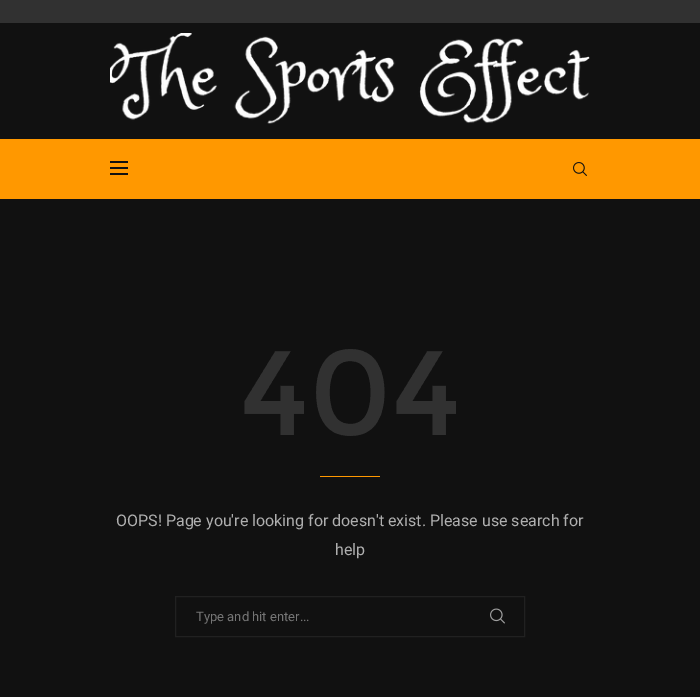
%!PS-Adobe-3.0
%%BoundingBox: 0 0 700 697
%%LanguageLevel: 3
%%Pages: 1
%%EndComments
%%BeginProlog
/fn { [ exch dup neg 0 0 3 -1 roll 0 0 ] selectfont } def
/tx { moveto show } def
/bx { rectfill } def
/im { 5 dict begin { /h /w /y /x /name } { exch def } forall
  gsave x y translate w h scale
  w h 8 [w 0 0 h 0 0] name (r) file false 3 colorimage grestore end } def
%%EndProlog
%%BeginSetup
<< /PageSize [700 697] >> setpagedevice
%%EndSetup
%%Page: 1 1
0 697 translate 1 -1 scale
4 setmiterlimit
0.067 setgray
0 0 700 697 bx
0.192 setgray
0 0 700 23 bx
(image0.raw) 110 33 480 91 im
1 0.596 0 setrgbcolor
0 139 700 60 bx
0.067 setgray
110 161 18 2 bx
110 167 18 2 bx
110 173 18 2 bx
(image1.raw) 573 162 14 14 im
(image2.raw) 244 349 212 87 im
1 0.596 0 setrgbcolor
320 476 60 1 bx
/Roboto-Regular 16 fn
0.686 setgray
(OOPS! Page you're looking for doesn't exist. Please use search for) 116 526 tx
(help) 335 555 tx
0.129 setgray
175.5 596.5 349 40 rectstroke
/Roboto-Regular 13 fn
0.459 setgray
(Type and hit enter...) 196 621 tx
(image3.raw) 490 608 15 16 im
showpage
%%EOF
